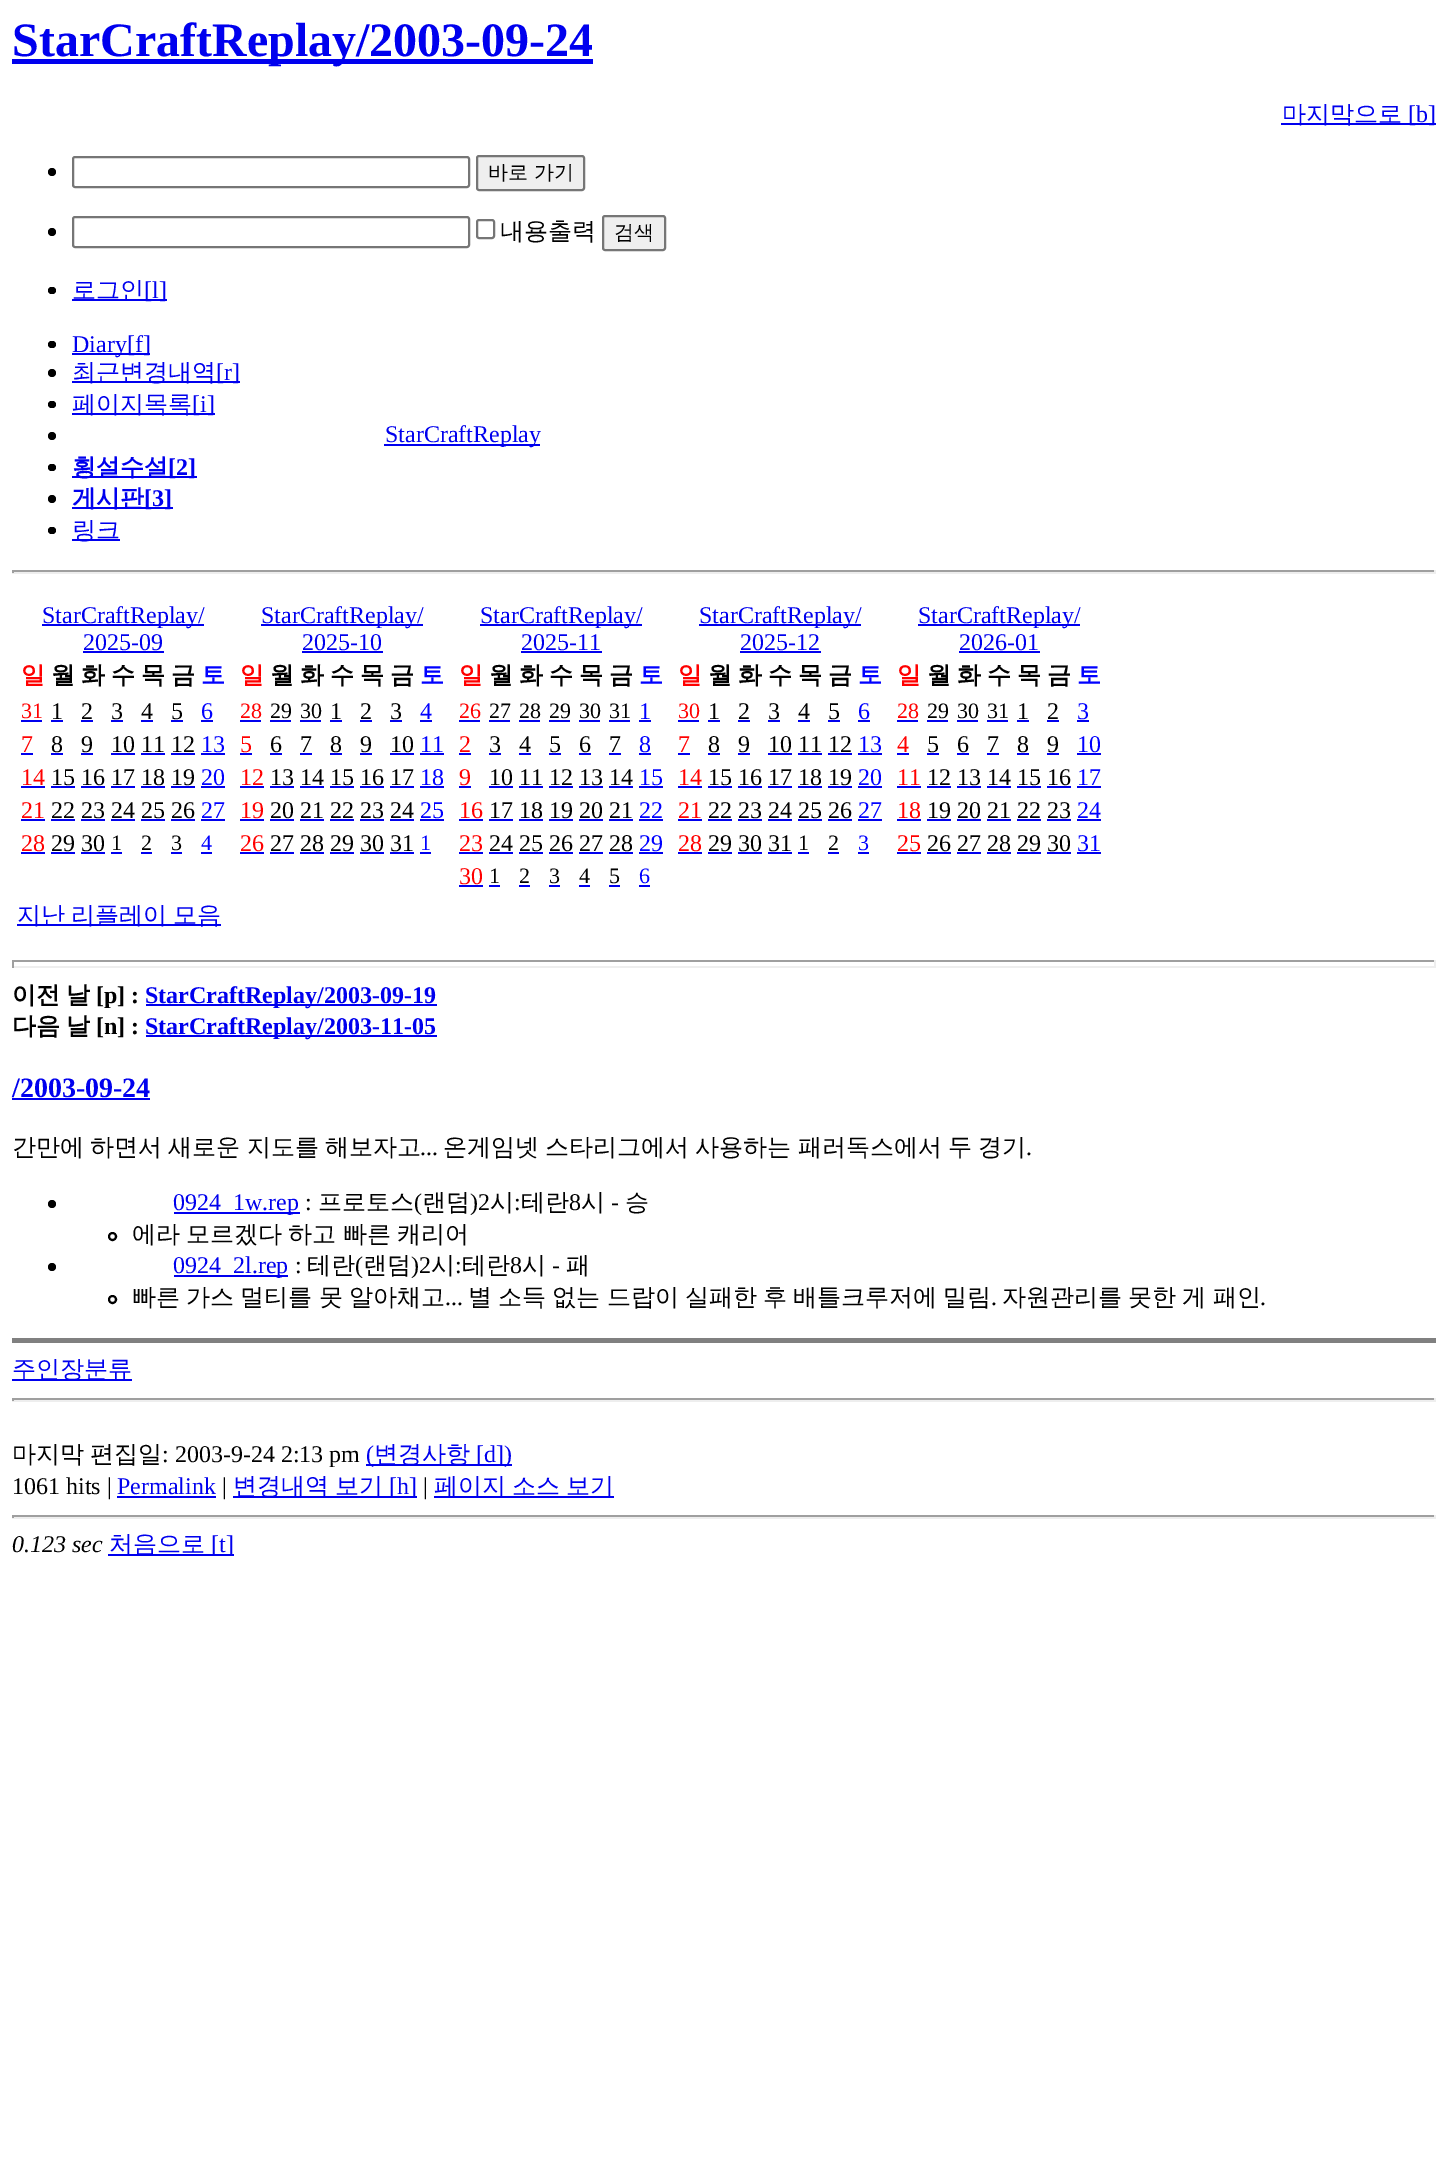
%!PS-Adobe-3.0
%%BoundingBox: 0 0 1447 2161
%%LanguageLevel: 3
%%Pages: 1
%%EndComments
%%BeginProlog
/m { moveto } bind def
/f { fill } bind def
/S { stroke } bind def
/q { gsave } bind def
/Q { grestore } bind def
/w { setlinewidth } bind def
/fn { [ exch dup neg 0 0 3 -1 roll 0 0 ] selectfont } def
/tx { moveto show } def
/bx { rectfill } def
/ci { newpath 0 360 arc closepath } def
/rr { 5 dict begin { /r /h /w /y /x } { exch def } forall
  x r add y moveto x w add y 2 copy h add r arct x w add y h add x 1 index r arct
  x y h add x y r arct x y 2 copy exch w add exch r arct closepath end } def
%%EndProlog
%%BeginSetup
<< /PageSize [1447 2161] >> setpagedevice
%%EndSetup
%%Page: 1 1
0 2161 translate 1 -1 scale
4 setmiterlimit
1 setgray
0 0 1447 2161 bx
0 0 0.933 setrgbcolor
12 59 581 5 bx
/LiberationSerif-Bold 48 fn
(StarCraftReplay/2003-09-24) 12 56 tx
1281 123 155 2 bx
/WenQuanYiZenHei-Medium 24 fn
(마지막으로) 1282 122 tx
/LiberationSerif-Regular 24 fn
([b]) 1408 122 tx
0 setgray
52 172 4 ci f
0.463 setgray
2 w
73 157 396 30 2 rr S
0.937 setgray
477 156 107 34 2 rr q f Q
0.463 setgray
S
/WenQuanYiZenHei-Medium 20 fn
0 setgray
(바로 가기) 488 179 tx
52 232 4 ci f
0.463 setgray
73 217 396 30 2 rr S
477 220 17 18 2 rr S
/WenQuanYiZenHei-Medium 24 fn
0 setgray
(내용출력) 500 239 tx
0.937 setgray
603 216 62 34 2 rr q f Q
0.463 setgray
S
/WenQuanYiZenHei-Medium 20 fn
0 setgray
(검색) 614 239 tx
48 287 8 7 3.5 rr f
0 0 0.933 setrgbcolor
72 299 95 2 bx
/WenQuanYiZenHei-Medium 24 fn
(로그인) 72 298 tx
/LiberationSerif-Regular 24 fn
([l]) 144 298 tx
0 setgray
48 341 8 7 3.5 rr f
0 0 0.933 setrgbcolor
72 353 54 2 bx
(Diary) 72 352 tx
126 353 24 2 bx
([f]) 127 352 tx
0 setgray
52 373 4 ci f
0 0 0.933 setrgbcolor
72 381 168 2 bx
/WenQuanYiZenHei-Medium 24 fn
(최근변경내역) 72 380 tx
/LiberationSerif-Regular 24 fn
([r]) 216 380 tx
0 setgray
48 401 8 7 3.5 rr f
0 0 0.933 setrgbcolor
72 413 143 2 bx
/WenQuanYiZenHei-Medium 24 fn
(페이지목록) 72 412 tx
/LiberationSerif-Regular 24 fn
([i]) 192 412 tx
0 setgray
52 436 4 ci f
0 0 0.933 setrgbcolor
384 444 156 2 bx
(StarCraftReplay) 385 442 tx
0 setgray
48 464 8 7 3.5 rr f
0 0 0.933 setrgbcolor
72 476 125 2 bx
/WenQuanYiZenHei-Bold 24 fn
(횡설수설) 72 475 tx
/LiberationSerif-Bold 24 fn
([2]) 168 475 tx
0 setgray
52 499 4 ci f
0 0 0.933 setrgbcolor
72 507 101 2 bx
/WenQuanYiZenHei-Bold 24 fn
(게시판) 72 506 tx
/LiberationSerif-Bold 24 fn
([3]) 144 506 tx
0 setgray
48 527 8 7 3.5 rr f
0 0 0.933 setrgbcolor
72 539 48 2 bx
/WenQuanYiZenHei-Medium 24 fn
(링크) 72 538 tx
0.624 setgray
12 570 1424 2 bx
0.933 setgray
1434 570 2 3 bx
12 572 1424 2 bx
0.624 setgray
12 570 2 3 bx
0 0 0.933 setrgbcolor
42 624 162 2 bx
/LiberationSerif-Regular 24 fn
(StarCraftReplay/) 42 623 tx
(2025-09) 83 650 tx
83 651 81 2 bx
/WenQuanYiZenHei-Bold 24 fn
1 0 0 setrgbcolor
(일) 21 683 tx
0 setgray
(월) 51 683 tx
(화) 81 683 tx
(수) 111 683 tx
(목) 141 683 tx
(금) 171 683 tx
0 0 1 setrgbcolor
(토) 201 683 tx
/LiberationSerif-Regular 22 fn
1 0 0 setrgbcolor
(31) 21 718 tx
0 0 0.933 setrgbcolor
21 720 21 2 bx
/LiberationSerif-Regular 24 fn
0 setgray
(1) 51 719 tx
0 0 0.933 setrgbcolor
51 720 12 2 bx
0 setgray
(2) 81 719 tx
0 0 0.933 setrgbcolor
81 720 12 2 bx
0 setgray
(3) 111 719 tx
0 0 0.933 setrgbcolor
111 720 12 2 bx
0 setgray
(4) 141 719 tx
0 0 0.933 setrgbcolor
141 720 12 2 bx
0 setgray
(5) 171 719 tx
0 0 0.933 setrgbcolor
171 720 12 2 bx
0 0 1 setrgbcolor
(6) 201 719 tx
0 0 0.933 setrgbcolor
201 720 12 2 bx
1 0 0 setrgbcolor
(7) 21 752 tx
0 0 0.933 setrgbcolor
21 753 12 2 bx
0 setgray
(8) 51 752 tx
0 0 0.933 setrgbcolor
51 753 12 2 bx
0 setgray
(9) 81 752 tx
0 0 0.933 setrgbcolor
81 753 12 2 bx
0 setgray
(10 11 12) 111 752 tx
0 0 0.933 setrgbcolor
111 753 24 2 bx
0 0 1 setrgbcolor
(13) 201 752 tx
0 0 0.933 setrgbcolor
201 753 24 2 bx
141 753 24 2 bx
171 753 24 2 bx
1 0 0 setrgbcolor
(14) 21 785 tx
0 0 0.933 setrgbcolor
21 786 24 2 bx
0 setgray
(15 16 17 18 19) 51 785 tx
0 0 0.933 setrgbcolor
51 786 24 2 bx
0 0 1 setrgbcolor
(20) 201 785 tx
0 0 0.933 setrgbcolor
201 786 24 2 bx
81 786 24 2 bx
111 786 24 2 bx
141 786 24 2 bx
171 786 24 2 bx
1 0 0 setrgbcolor
(21) 21 818 tx
0 0 0.933 setrgbcolor
21 819 24 2 bx
0 setgray
(22 23 24 25 26) 51 818 tx
0 0 0.933 setrgbcolor
51 819 24 2 bx
0 0 1 setrgbcolor
(27) 201 818 tx
0 0 0.933 setrgbcolor
201 819 24 2 bx
81 819 24 2 bx
111 819 24 2 bx
141 819 24 2 bx
171 819 24 2 bx
1 0 0 setrgbcolor
(28) 21 851 tx
0 0 0.933 setrgbcolor
21 852 24 2 bx
0 setgray
(29 30) 51 851 tx
0 0 0.933 setrgbcolor
51 852 24 2 bx
/LiberationSerif-Regular 22 fn
0 setgray
(1) 111 850 tx
0 0 0.933 setrgbcolor
111 852 11 2 bx
0 setgray
(2) 141 850 tx
0 0 0.933 setrgbcolor
141 852 11 2 bx
0 setgray
(3) 171 850 tx
0 0 0.933 setrgbcolor
171 852 11 2 bx
0 0 1 setrgbcolor
(4) 201 850 tx
0 0 0.933 setrgbcolor
201 852 11 2 bx
81 852 24 2 bx
261 624 162 2 bx
/LiberationSerif-Regular 24 fn
(StarCraftReplay/) 261 623 tx
(2025-10) 302 650 tx
302 651 81 2 bx
/WenQuanYiZenHei-Bold 24 fn
1 0 0 setrgbcolor
(일) 240 683 tx
0 setgray
(월) 270 683 tx
(화) 300 683 tx
(수) 330 683 tx
(목) 360 683 tx
(금) 390 683 tx
0 0 1 setrgbcolor
(토) 420 683 tx
/LiberationSerif-Regular 22 fn
1 0 0 setrgbcolor
(28) 240 718 tx
0 0 0.933 setrgbcolor
240 720 21 2 bx
0 setgray
(29) 270 718 tx
0 0 0.933 setrgbcolor
270 720 21 2 bx
0 setgray
(30) 300 718 tx
0 0 0.933 setrgbcolor
300 720 21 2 bx
/LiberationSerif-Regular 24 fn
0 setgray
(1) 330 719 tx
0 0 0.933 setrgbcolor
330 720 12 2 bx
0 setgray
(2) 360 719 tx
0 0 0.933 setrgbcolor
360 720 12 2 bx
0 setgray
(3) 390 719 tx
0 0 0.933 setrgbcolor
390 720 12 2 bx
0 0 1 setrgbcolor
(4) 420 719 tx
0 0 0.933 setrgbcolor
420 720 12 2 bx
1 0 0 setrgbcolor
(5) 240 752 tx
0 0 0.933 setrgbcolor
240 753 12 2 bx
0 setgray
(6) 270 752 tx
0 0 0.933 setrgbcolor
270 753 12 2 bx
0 setgray
(7) 300 752 tx
0 0 0.933 setrgbcolor
300 753 12 2 bx
0 setgray
(8) 330 752 tx
0 0 0.933 setrgbcolor
330 753 12 2 bx
0 setgray
(9) 360 752 tx
0 0 0.933 setrgbcolor
360 753 12 2 bx
0 setgray
(10) 390 752 tx
0 0 0.933 setrgbcolor
390 753 24 2 bx
0 0 1 setrgbcolor
(11) 420 752 tx
0 0 0.933 setrgbcolor
420 753 24 2 bx
1 0 0 setrgbcolor
(12) 240 785 tx
0 0 0.933 setrgbcolor
240 786 24 2 bx
0 setgray
(13 14 15 16 17) 270 785 tx
0 0 0.933 setrgbcolor
270 786 24 2 bx
0 0 1 setrgbcolor
(18) 420 785 tx
0 0 0.933 setrgbcolor
420 786 24 2 bx
300 786 24 2 bx
330 786 24 2 bx
360 786 24 2 bx
390 786 24 2 bx
1 0 0 setrgbcolor
(19) 240 818 tx
0 0 0.933 setrgbcolor
240 819 24 2 bx
0 setgray
(20 21 22 23 24) 270 818 tx
0 0 0.933 setrgbcolor
270 819 24 2 bx
0 0 1 setrgbcolor
(25) 420 818 tx
0 0 0.933 setrgbcolor
420 819 24 2 bx
300 819 24 2 bx
330 819 24 2 bx
360 819 24 2 bx
390 819 24 2 bx
1 0 0 setrgbcolor
(26) 240 851 tx
0 0 0.933 setrgbcolor
240 852 24 2 bx
0 setgray
(27 28 29 30 31) 270 851 tx
0 0 0.933 setrgbcolor
270 852 24 2 bx
/LiberationSerif-Regular 22 fn
0 0 1 setrgbcolor
(1) 420 850 tx
0 0 0.933 setrgbcolor
420 852 11 2 bx
300 852 24 2 bx
330 852 24 2 bx
360 852 24 2 bx
390 852 24 2 bx
480 624 162 2 bx
/LiberationSerif-Regular 24 fn
(StarCraftReplay/) 480 623 tx
(2025-11) 521 650 tx
521 651 81 2 bx
/WenQuanYiZenHei-Bold 24 fn
1 0 0 setrgbcolor
(일) 459 683 tx
0 setgray
(월) 489 683 tx
(화) 519 683 tx
(수) 549 683 tx
(목) 579 683 tx
(금) 609 683 tx
0 0 1 setrgbcolor
(토) 639 683 tx
/LiberationSerif-Regular 22 fn
1 0 0 setrgbcolor
(26) 459 718 tx
0 0 0.933 setrgbcolor
459 720 21 2 bx
0 setgray
(27) 489 718 tx
0 0 0.933 setrgbcolor
489 720 21 2 bx
0 setgray
(28) 519 718 tx
0 0 0.933 setrgbcolor
519 720 21 2 bx
0 setgray
(29) 549 718 tx
0 0 0.933 setrgbcolor
549 720 21 2 bx
0 setgray
(30) 579 718 tx
0 0 0.933 setrgbcolor
579 720 21 2 bx
0 setgray
(31) 609 718 tx
0 0 0.933 setrgbcolor
609 720 21 2 bx
/LiberationSerif-Regular 24 fn
0 0 1 setrgbcolor
(1) 639 719 tx
0 0 0.933 setrgbcolor
639 720 12 2 bx
1 0 0 setrgbcolor
(2) 459 752 tx
0 0 0.933 setrgbcolor
459 753 12 2 bx
0 setgray
(3) 489 752 tx
0 0 0.933 setrgbcolor
489 753 12 2 bx
0 setgray
(4) 519 752 tx
0 0 0.933 setrgbcolor
519 753 12 2 bx
0 setgray
(5) 549 752 tx
0 0 0.933 setrgbcolor
549 753 12 2 bx
0 setgray
(6) 579 752 tx
0 0 0.933 setrgbcolor
579 753 12 2 bx
0 setgray
(7) 609 752 tx
0 0 0.933 setrgbcolor
609 753 12 2 bx
0 0 1 setrgbcolor
(8) 639 752 tx
0 0 0.933 setrgbcolor
639 753 12 2 bx
1 0 0 setrgbcolor
(9) 459 785 tx
0 0 0.933 setrgbcolor
459 786 12 2 bx
0 setgray
(10 11 12 13 14) 489 785 tx
0 0 0.933 setrgbcolor
489 786 24 2 bx
0 0 1 setrgbcolor
(15) 639 785 tx
0 0 0.933 setrgbcolor
639 786 24 2 bx
519 786 24 2 bx
549 786 24 2 bx
579 786 24 2 bx
609 786 24 2 bx
1 0 0 setrgbcolor
(16) 459 818 tx
0 0 0.933 setrgbcolor
459 819 24 2 bx
0 setgray
(17 18 19 20 21) 489 818 tx
0 0 0.933 setrgbcolor
489 819 24 2 bx
0 0 1 setrgbcolor
(22) 639 818 tx
0 0 0.933 setrgbcolor
639 819 24 2 bx
519 819 24 2 bx
549 819 24 2 bx
579 819 24 2 bx
609 819 24 2 bx
1 0 0 setrgbcolor
(23) 459 851 tx
0 0 0.933 setrgbcolor
459 852 24 2 bx
0 setgray
(24 25 26 27 28) 489 851 tx
0 0 0.933 setrgbcolor
489 852 24 2 bx
0 0 1 setrgbcolor
(29) 639 851 tx
0 0 0.933 setrgbcolor
639 852 24 2 bx
519 852 24 2 bx
549 852 24 2 bx
579 852 24 2 bx
609 852 24 2 bx
1 0 0 setrgbcolor
(30) 459 884 tx
0 0 0.933 setrgbcolor
459 885 24 2 bx
/LiberationSerif-Regular 22 fn
0 setgray
(1) 489 883 tx
0 0 0.933 setrgbcolor
489 885 11 2 bx
0 setgray
(2) 519 883 tx
0 0 0.933 setrgbcolor
519 885 11 2 bx
0 setgray
(3) 549 883 tx
0 0 0.933 setrgbcolor
549 885 11 2 bx
0 setgray
(4) 579 883 tx
0 0 0.933 setrgbcolor
579 885 11 2 bx
0 setgray
(5) 609 883 tx
0 0 0.933 setrgbcolor
609 885 11 2 bx
0 0 1 setrgbcolor
(6) 639 883 tx
0 0 0.933 setrgbcolor
639 885 11 2 bx
699 624 162 2 bx
/LiberationSerif-Regular 24 fn
(StarCraftReplay/) 699 623 tx
(2025-12) 740 650 tx
740 651 81 2 bx
/WenQuanYiZenHei-Bold 24 fn
1 0 0 setrgbcolor
(일) 678 683 tx
0 setgray
(월) 708 683 tx
(화) 738 683 tx
(수) 768 683 tx
(목) 798 683 tx
(금) 828 683 tx
0 0 1 setrgbcolor
(토) 858 683 tx
/LiberationSerif-Regular 22 fn
1 0 0 setrgbcolor
(30) 678 718 tx
0 0 0.933 setrgbcolor
678 720 21 2 bx
/LiberationSerif-Regular 24 fn
0 setgray
(1) 708 719 tx
0 0 0.933 setrgbcolor
708 720 12 2 bx
0 setgray
(2) 738 719 tx
0 0 0.933 setrgbcolor
738 720 12 2 bx
0 setgray
(3) 768 719 tx
0 0 0.933 setrgbcolor
768 720 12 2 bx
0 setgray
(4) 798 719 tx
0 0 0.933 setrgbcolor
798 720 12 2 bx
0 setgray
(5) 828 719 tx
0 0 0.933 setrgbcolor
828 720 12 2 bx
0 0 1 setrgbcolor
(6) 858 719 tx
0 0 0.933 setrgbcolor
858 720 12 2 bx
1 0 0 setrgbcolor
(7) 678 752 tx
0 0 0.933 setrgbcolor
678 753 12 2 bx
0 setgray
(8) 708 752 tx
0 0 0.933 setrgbcolor
708 753 12 2 bx
0 setgray
(9) 738 752 tx
0 0 0.933 setrgbcolor
738 753 12 2 bx
0 setgray
(10 11 12) 768 752 tx
0 0 0.933 setrgbcolor
768 753 24 2 bx
0 0 1 setrgbcolor
(13) 858 752 tx
0 0 0.933 setrgbcolor
858 753 24 2 bx
798 753 24 2 bx
828 753 24 2 bx
1 0 0 setrgbcolor
(14) 678 785 tx
0 0 0.933 setrgbcolor
678 786 24 2 bx
0 setgray
(15 16 17 18 19) 708 785 tx
0 0 0.933 setrgbcolor
708 786 24 2 bx
0 0 1 setrgbcolor
(20) 858 785 tx
0 0 0.933 setrgbcolor
858 786 24 2 bx
738 786 24 2 bx
768 786 24 2 bx
798 786 24 2 bx
828 786 24 2 bx
1 0 0 setrgbcolor
(21) 678 818 tx
0 0 0.933 setrgbcolor
678 819 24 2 bx
0 setgray
(22 23 24 25 26) 708 818 tx
0 0 0.933 setrgbcolor
708 819 24 2 bx
0 0 1 setrgbcolor
(27) 858 818 tx
0 0 0.933 setrgbcolor
858 819 24 2 bx
738 819 24 2 bx
768 819 24 2 bx
798 819 24 2 bx
828 819 24 2 bx
1 0 0 setrgbcolor
(28) 678 851 tx
0 0 0.933 setrgbcolor
678 852 24 2 bx
0 setgray
(29 30 31) 708 851 tx
0 0 0.933 setrgbcolor
708 852 24 2 bx
/LiberationSerif-Regular 22 fn
0 setgray
(1) 798 850 tx
0 0 0.933 setrgbcolor
798 852 11 2 bx
0 setgray
(2) 828 850 tx
0 0 0.933 setrgbcolor
828 852 11 2 bx
0 0 1 setrgbcolor
(3) 858 850 tx
0 0 0.933 setrgbcolor
858 852 11 2 bx
738 852 24 2 bx
768 852 24 2 bx
918 624 162 2 bx
/LiberationSerif-Regular 24 fn
(StarCraftReplay/) 918 623 tx
(2026-01) 959 650 tx
959 651 81 2 bx
/WenQuanYiZenHei-Bold 24 fn
1 0 0 setrgbcolor
(일) 897 683 tx
0 setgray
(월) 927 683 tx
(화) 957 683 tx
(수) 987 683 tx
(목) 1017 683 tx
(금) 1047 683 tx
0 0 1 setrgbcolor
(토) 1077 683 tx
/LiberationSerif-Regular 22 fn
1 0 0 setrgbcolor
(28) 897 718 tx
0 0 0.933 setrgbcolor
897 720 21 2 bx
0 setgray
(29) 927 718 tx
0 0 0.933 setrgbcolor
927 720 21 2 bx
0 setgray
(30) 957 718 tx
0 0 0.933 setrgbcolor
957 720 21 2 bx
0 setgray
(31) 987 718 tx
0 0 0.933 setrgbcolor
987 720 21 2 bx
/LiberationSerif-Regular 24 fn
0 setgray
(1) 1017 719 tx
0 0 0.933 setrgbcolor
1017 720 12 2 bx
0 setgray
(2) 1047 719 tx
0 0 0.933 setrgbcolor
1047 720 12 2 bx
0 0 1 setrgbcolor
(3) 1077 719 tx
0 0 0.933 setrgbcolor
1077 720 12 2 bx
1 0 0 setrgbcolor
(4) 897 752 tx
0 0 0.933 setrgbcolor
897 753 12 2 bx
0 setgray
(5) 927 752 tx
0 0 0.933 setrgbcolor
927 753 12 2 bx
0 setgray
(6) 957 752 tx
0 0 0.933 setrgbcolor
957 753 12 2 bx
0 setgray
(7) 987 752 tx
0 0 0.933 setrgbcolor
987 753 12 2 bx
0 setgray
(8) 1017 752 tx
0 0 0.933 setrgbcolor
1017 753 12 2 bx
0 setgray
(9) 1047 752 tx
0 0 0.933 setrgbcolor
1047 753 12 2 bx
0 0 1 setrgbcolor
(10) 1077 752 tx
0 0 0.933 setrgbcolor
1077 753 24 2 bx
1 0 0 setrgbcolor
(11) 897 785 tx
0 0 0.933 setrgbcolor
897 786 24 2 bx
0 setgray
(12 13 14 15 16) 927 785 tx
0 0 0.933 setrgbcolor
927 786 24 2 bx
0 0 1 setrgbcolor
(17) 1077 785 tx
0 0 0.933 setrgbcolor
1077 786 24 2 bx
957 786 24 2 bx
987 786 24 2 bx
1017 786 24 2 bx
1047 786 24 2 bx
1 0 0 setrgbcolor
(18) 897 818 tx
0 0 0.933 setrgbcolor
897 819 24 2 bx
0 setgray
(19 20 21 22 23) 927 818 tx
0 0 0.933 setrgbcolor
927 819 24 2 bx
0 0 1 setrgbcolor
(24) 1077 818 tx
0 0 0.933 setrgbcolor
1077 819 24 2 bx
957 819 24 2 bx
987 819 24 2 bx
1017 819 24 2 bx
1047 819 24 2 bx
1 0 0 setrgbcolor
(25) 897 851 tx
0 0 0.933 setrgbcolor
897 852 24 2 bx
0 setgray
(26 27 28 29 30) 927 851 tx
0 0 0.933 setrgbcolor
927 852 24 2 bx
0 0 1 setrgbcolor
(31) 1077 851 tx
0 0 0.933 setrgbcolor
1077 852 24 2 bx
957 852 24 2 bx
987 852 24 2 bx
1017 852 24 2 bx
1047 852 24 2 bx
17 924 204 2 bx
/WenQuanYiZenHei-Medium 24 fn
17 923 m -1 0 32 (지난 리플레이 모음) widthshow
0.624 setgray
12 960 1424 2 bx
0.933 setgray
1434 960 2 8 bx
12 966 1424 2 bx
0.624 setgray
12 960 2 8 bx
/WenQuanYiZenHei-Bold 24 fn
0 setgray
(이전) 12 1003 tx
(날) 66 1003 tx
/LiberationSerif-Bold 24 fn
([p] :) 96 1003 tx
0 0 0.933 setrgbcolor
146 1004 291 2 bx
(StarCraftReplay/2003-09-19) 145 1003 tx
/WenQuanYiZenHei-Bold 24 fn
0 setgray
(다음) 12 1034 tx
(날) 66 1034 tx
/LiberationSerif-Bold 24 fn
([n] :) 96 1034 tx
0 0 0.933 setrgbcolor
146 1035 291 2 bx
(StarCraftReplay/2003-11-05) 145 1034 tx
/LiberationSerif-Bold 28 fn
(/2003-09-24) 12 1097 tx
12 1098 138 2 bx
/WenQuanYiZenHei-Medium 24 fn
0 setgray
12 1155 m -1 0 32 (간만에 하면서 새로운 지도를 해보자고) widthshow
/LiberationSerif-Regular 24 fn
(...) 420 1155 tx
/WenQuanYiZenHei-Medium 24 fn
443 1155 m -1 0 32 (온게임넷 스타리그에서 사용하는 패러독스에서 두 경기) widthshow
/LiberationSerif-Regular 24 fn
(.) 1026 1155 tx
52 1204 4 ci f
0 0 0.933 setrgbcolor
174 1212 126 2 bx
(0924_1w.rep) 173 1210 tx
0 setgray
(:) 305 1210 tx
/WenQuanYiZenHei-Medium 24 fn
(프로토스) 318 1210 tx
/LiberationSerif-Regular 24 fn
(\() 414 1210 tx
/WenQuanYiZenHei-Medium 24 fn
(랜덤) 422 1210 tx
/LiberationSerif-Regular 24 fn
(\)2) 470 1210 tx
/WenQuanYiZenHei-Medium 24 fn
(시) 490 1210 tx
/LiberationSerif-Regular 24 fn
(:) 514 1210 tx
/WenQuanYiZenHei-Medium 24 fn
(테란) 521 1210 tx
/LiberationSerif-Regular 24 fn
(8) 569 1210 tx
/WenQuanYiZenHei-Medium 24 fn
(시) 581 1210 tx
/LiberationSerif-Regular 24 fn
(-) 611 1210 tx
/WenQuanYiZenHei-Medium 24 fn
(승) 625 1210 tx
112.5 1236.5 3.5 ci S
132 1242 m -1 0 32 (에라 모르겠다 하고 빠른 캐리어) widthshow
52 1267 4 ci f
0 0 0.933 setrgbcolor
174 1275 114 2 bx
/LiberationSerif-Regular 24 fn
(0924_2l.rep) 173 1273 tx
0 setgray
(:) 295 1273 tx
/WenQuanYiZenHei-Medium 24 fn
(테란) 307 1273 tx
/LiberationSerif-Regular 24 fn
(\() 355 1273 tx
/WenQuanYiZenHei-Medium 24 fn
(랜덤) 363 1273 tx
/LiberationSerif-Regular 24 fn
(\)2) 411 1273 tx
/WenQuanYiZenHei-Medium 24 fn
(시) 431 1273 tx
/LiberationSerif-Regular 24 fn
(:) 455 1273 tx
/WenQuanYiZenHei-Medium 24 fn
(테란) 462 1273 tx
/LiberationSerif-Regular 24 fn
(8) 510 1273 tx
/WenQuanYiZenHei-Medium 24 fn
(시) 522 1273 tx
/LiberationSerif-Regular 24 fn
(-) 552 1273 tx
/WenQuanYiZenHei-Medium 24 fn
(패) 566 1273 tx
112.5 1299.5 3.5 ci S
132 1305 m -1 0 32 (빠른 가스 멀티를 못 알아채고) widthshow
/LiberationSerif-Regular 24 fn
(...) 445 1305 tx
/WenQuanYiZenHei-Medium 24 fn
468 1305 m -1 0 32 (별 소득 없는 드랍이 실패한 후 배틀크루저에 밀림) widthshow
/LiberationSerif-Regular 24 fn
(.) 991 1305 tx
/WenQuanYiZenHei-Medium 24 fn
1002 1305 m -1 0 32 (자원관리를 못한 게 패인) widthshow
/LiberationSerif-Regular 24 fn
(.) 1260 1305 tx
0.502 setgray
12 1338 1424 5 bx
0 0 0.933 setrgbcolor
12 1379 120 2 bx
/WenQuanYiZenHei-Medium 24 fn
(주인장분류) 12 1377 tx
0.624 setgray
12 1398 1424 2 bx
0.933 setgray
1434 1398 2 3 bx
12 1400 1424 2 bx
0.624 setgray
12 1398 2 3 bx
0 setgray
(마지막) 12 1462 tx
(편집일) 90 1462 tx
/LiberationSerif-Regular 24 fn
(: 2003-9-24 2:13 pm) 162 1462 tx
0 0 0.933 setrgbcolor
366 1464 146 2 bx
(\() 366 1462 tx
/WenQuanYiZenHei-Medium 24 fn
(변경사항) 374 1462 tx
/LiberationSerif-Regular 24 fn
([d]\)) 476 1462 tx
0 setgray
(1061 hits |) 12 1494 tx
0 0 0.933 setrgbcolor
(Permalink) 117 1494 tx
117 1496 99 2 bx
0 setgray
(|) 222 1494 tx
0 0 0.933 setrgbcolor
233 1496 184 2 bx
/WenQuanYiZenHei-Medium 24 fn
233 1494 m -1 0 32 (변경내역 보기) widthshow
/LiberationSerif-Regular 24 fn
([h]) 389 1494 tx
0 setgray
(|) 423 1494 tx
0 0 0.933 setrgbcolor
434 1496 180 2 bx
/WenQuanYiZenHei-Medium 24 fn
434 1494 m -1 0 32 (페이지 소스 보기) widthshow
0.624 setgray
12 1515 1424 2 bx
0.933 setgray
1434 1515 2 3 bx
12 1517 1424 2 bx
0.624 setgray
12 1515 2 3 bx
/LiberationSerif-Italic 24 fn
0 setgray
(0.123 sec) 12 1552 tx
0 0 0.933 setrgbcolor
108 1554 126 2 bx
/WenQuanYiZenHei-Medium 24 fn
(처음으로) 109 1552 tx
/LiberationSerif-Regular 24 fn
([t]) 211 1552 tx
showpage
%%EOF
